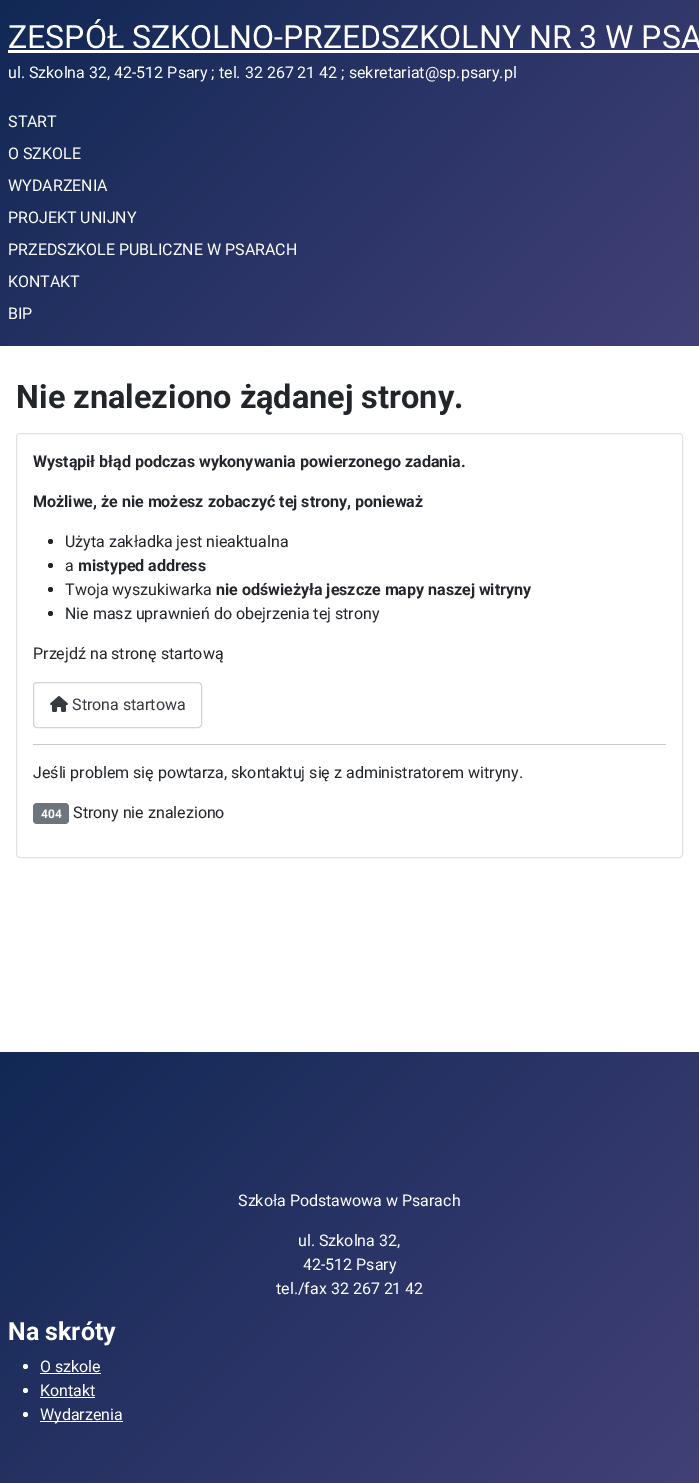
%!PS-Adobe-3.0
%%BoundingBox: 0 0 699 1483
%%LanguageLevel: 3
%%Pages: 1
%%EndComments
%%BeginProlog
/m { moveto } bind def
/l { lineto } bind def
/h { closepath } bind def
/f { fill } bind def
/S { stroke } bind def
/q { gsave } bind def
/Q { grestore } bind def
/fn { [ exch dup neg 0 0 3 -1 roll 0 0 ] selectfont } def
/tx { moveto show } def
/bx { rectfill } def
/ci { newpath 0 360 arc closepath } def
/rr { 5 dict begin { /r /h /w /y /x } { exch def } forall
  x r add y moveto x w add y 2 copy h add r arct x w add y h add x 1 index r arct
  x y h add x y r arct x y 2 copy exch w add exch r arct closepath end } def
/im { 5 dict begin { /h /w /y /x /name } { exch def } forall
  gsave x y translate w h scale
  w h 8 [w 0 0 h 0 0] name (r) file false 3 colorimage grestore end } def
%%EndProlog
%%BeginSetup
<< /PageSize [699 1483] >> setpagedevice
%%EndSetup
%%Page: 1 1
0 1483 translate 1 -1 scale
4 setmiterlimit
1 setgray
0 0 699 1483 bx
q 0 0 m 699 0 l 699 346 l 0 346 l h clip newpath
<< /ShadingType 2 /ColorSpace /DeviceRGB /Coords [88 -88 611 434] /Extend [true true] /Function << /FunctionType 2 /Domain [0 1] /C0 [0.067 0.157 0.333] /C1 [0.259 0.251 0.467] /N 1 >> >> shfill Q
/Roboto-Regular 32 fn
(ZESPÓŁ SZKOLNO-PRZEDSZKOLNY NR 3 W PSA) 8 48 tx
8 50 691 3 bx
/Roboto-Regular 16 fn
(ul. Szkolna 32, 42-512 Psary ; tel. 32 267 21 42 ; sekretariat@sp.psary.pl) 8 78 tx
(START) 8 127 tx
(O SZKOLE) 8 159 tx
(WYDARZENIA) 8 191 tx
(PROJEKT UNIJNY) 8 223 tx
(PRZEDSZKOLE PUBLICZNE W PSARACH) 8 255 tx
(KONTAKT) 8 287 tx
(BIP) 8 319 tx
/Roboto-Bold 32.5 fn
0.133 0.149 0.165 setrgbcolor
(Nie znaleziono żądanej strony.) 16 408 tx
0.875 0.89 0.906 setrgbcolor
16.5 433.5 666 424 3.5 rr S
/Roboto-Bold 16 fn
0.133 0.149 0.165 setrgbcolor
(Wystąpił błąd podczas wykonywania powierzonego zadania.) 33 467 tx
(Możliwe, że nie możesz zobaczyć tej strony, ponieważ) 33 507 tx
50.5 541.5 2.5 ci f
/Roboto-Regular 16 fn
(Użyta zakładka jest nieaktualna) 65 547 tx
50.5 565.5 2.5 ci f
(a) 65 571 tx
/Roboto-Bold 16 fn
(mistyped address) 78 571 tx
50.5 589.5 2.5 ci f
/Roboto-Regular 16 fn
(Twoja wyszukiwarka) 65 595 tx
/Roboto-Bold 16 fn
(nie odświeżyła jeszcze mapy naszej witryny) 216 595 tx
50.5 613.5 2.5 ci f
/Roboto-Regular 16 fn
(Nie masz uprawnień do obejrzenia tej strony) 65 619 tx
(Przejdź na stronę startową) 33 659 tx
0.808 0.831 0.855 setrgbcolor
33.5 682.5 168 45 3.5 rr S
(image0.raw) 50 696 18 16 im
0.208 0.231 0.255 setrgbcolor
(Strona startowa) 72 710 tx
0.784 0.788 0.792 setrgbcolor
33 744 633 1 bx
0.133 0.149 0.165 setrgbcolor
(Jeśli problem się powtarza, skontaktuj się z administratorem witryny.) 33 778 tx
0.427 0.459 0.494 setrgbcolor
33 803 36 21 4 rr f
/Roboto-Bold 12 fn
1 setgray
(404) 41 818 tx
/Roboto-Regular 16 fn
0.133 0.149 0.165 setrgbcolor
(Strony nie znaleziono) 73 818 tx
q 0 1052 m 699 1052 l 699 1483 l 0 1483 l h clip newpath
<< /ShadingType 2 /ColorSpace /DeviceRGB /Coords [67 985 632 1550] /Extend [true true] /Function << /FunctionType 2 /Domain [0 1] /C0 [0.067 0.157 0.333] /C1 [0.259 0.251 0.467] /N 1 >> >> shfill Q
1 setgray
(Szkoła Podstawowa w Psarach) 238 1206 tx
(ul. Szkolna 32,) 298 1246 tx
(42-512 Psary) 303 1270 tx
(tel./fax 32 267 21 42) 276 1294 tx
/Roboto-Bold 25 fn
(Na skróty) 8 1340 tx
25.5 1366.5 2.5 ci f
/Roboto-Regular 16 fn
(O szkole) 40 1372 tx
40 1373 61 1 bx
25.5 1390.5 2.5 ci f
(Kontakt) 40 1396 tx
40 1397 55 1 bx
25.5 1414.5 2.5 ci f
40 1421 83 1 bx
(Wydarzenia) 40 1420 tx
showpage
%%EOF
